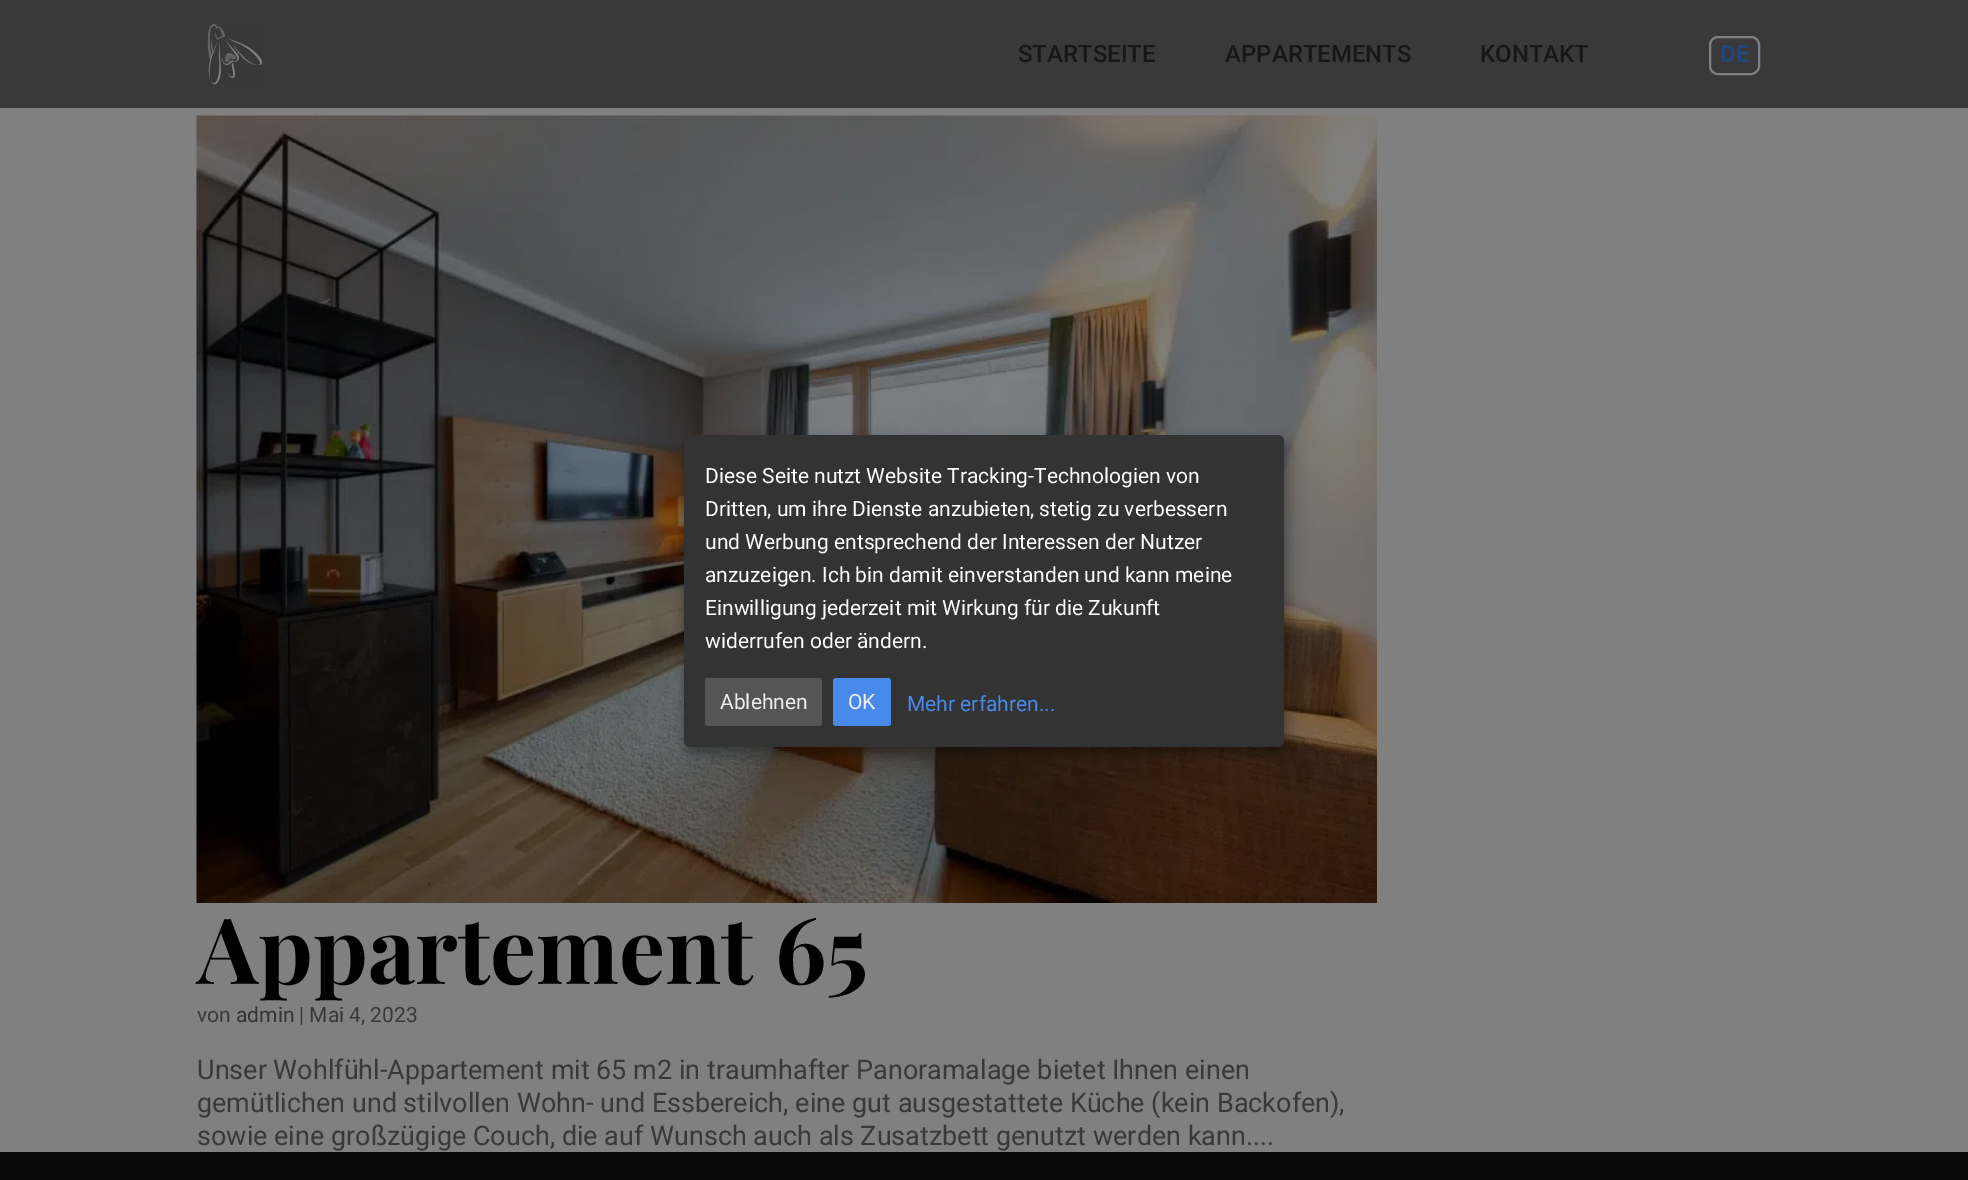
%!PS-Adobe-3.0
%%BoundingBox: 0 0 1968 1180
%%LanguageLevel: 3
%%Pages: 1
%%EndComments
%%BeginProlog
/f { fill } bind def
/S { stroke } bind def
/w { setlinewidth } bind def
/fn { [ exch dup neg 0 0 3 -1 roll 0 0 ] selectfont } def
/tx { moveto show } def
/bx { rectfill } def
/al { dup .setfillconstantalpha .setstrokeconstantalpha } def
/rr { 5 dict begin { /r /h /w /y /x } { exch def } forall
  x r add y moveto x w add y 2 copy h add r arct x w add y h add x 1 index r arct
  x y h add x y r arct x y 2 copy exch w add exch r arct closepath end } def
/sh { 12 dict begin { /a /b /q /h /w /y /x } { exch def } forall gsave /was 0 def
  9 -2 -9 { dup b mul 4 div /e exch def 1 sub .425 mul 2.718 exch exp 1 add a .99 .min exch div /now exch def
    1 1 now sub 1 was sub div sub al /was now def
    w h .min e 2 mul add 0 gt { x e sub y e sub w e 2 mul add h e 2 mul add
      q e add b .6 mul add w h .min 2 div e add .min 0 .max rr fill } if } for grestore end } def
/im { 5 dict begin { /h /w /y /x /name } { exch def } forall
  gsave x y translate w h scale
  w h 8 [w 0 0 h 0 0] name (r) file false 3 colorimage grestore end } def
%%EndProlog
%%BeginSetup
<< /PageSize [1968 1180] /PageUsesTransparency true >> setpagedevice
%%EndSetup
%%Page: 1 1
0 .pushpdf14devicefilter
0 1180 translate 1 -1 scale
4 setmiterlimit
0.502 setgray
0 0 1968 1180 bx
0.224 setgray
0 0 1968 108 bx
(image0.raw) 207 23 56 62 im
/Roboto-Medium 24 fn
0.09 setgray
(STARTSEITE) 1018 62 tx
(APPARTEMENTS) 1225 62 tx
(KONTAKT) 1480 62 tx
0.502 setgray
2 w
1710 37 49 37 8 rr S
/Roboto-Bold 24 fn
0.141 0.271 0.463 setrgbcolor
(DE) 1720 62 tx
(image1.raw) 196 115 1181 788 im
/PlayfairDisplay-BoldItalic 91.5 fn
0 setgray
(Appartement 65) 197 984 tx
/Roboto-Regular 21 fn
0.224 setgray
(von) 197 1022 tx
0.2 setgray
(admin) 236 1022 tx
0.224 setgray
(| Mai 4, 2023) 299 1022 tx
/Roboto-Regular 27 fn
(Unser Wohlfühl-Appartement mit 65 m2 in traumhafter Panoramalage bietet Ihnen einen) 197 1079 tx
(gemütlichen und stilvollen Wohn- und Essbereich, eine gut ausgestattete Küche \(kein Backofen\),) 197 1112 tx
(sowie eine großzügige Couch, die auf Wunsch auch als Zusatzbett genutzt werden kann....) 197 1145 tx
0.035 setgray
0 1152 1968 28 bx
0 setgray
692 443 600 312 6 7.5 0.19 sh
684 441 600 312 6 4.5 0.2 sh
0.2 setgray
684 435 600 312 6 rr f
/Roboto-Regular 21 fn
1 setgray
(Diese Seite nutzt Website Tracking-Technologien von) 705 483 tx
(Dritten, um ihre Dienste anzubieten, stetig zu verbessern) 705 516 tx
(und Werbung entsprechend der Interessen der Nutzer) 705 549 tx
(anzuzeigen. Ich bin damit einverstanden und kann meine) 705 582 tx
(Einwilligung jederzeit mit Wirkung für die Zukunft) 705 615 tx
(widerrufen oder ändern.) 705 648 tx
0.333 setgray
705 678 117 48 3 rr f
0.933 setgray
(Ablehnen) 720 709 tx
0.282 0.537 0.925 setrgbcolor
833 678 58 48 3 rr f
0.933 setgray
(OK) 848 709 tx
0.282 0.537 0.925 setrgbcolor
(Mehr erfahren...) 907 711 tx
.poppdf14devicefilter showpage
%%EOF
